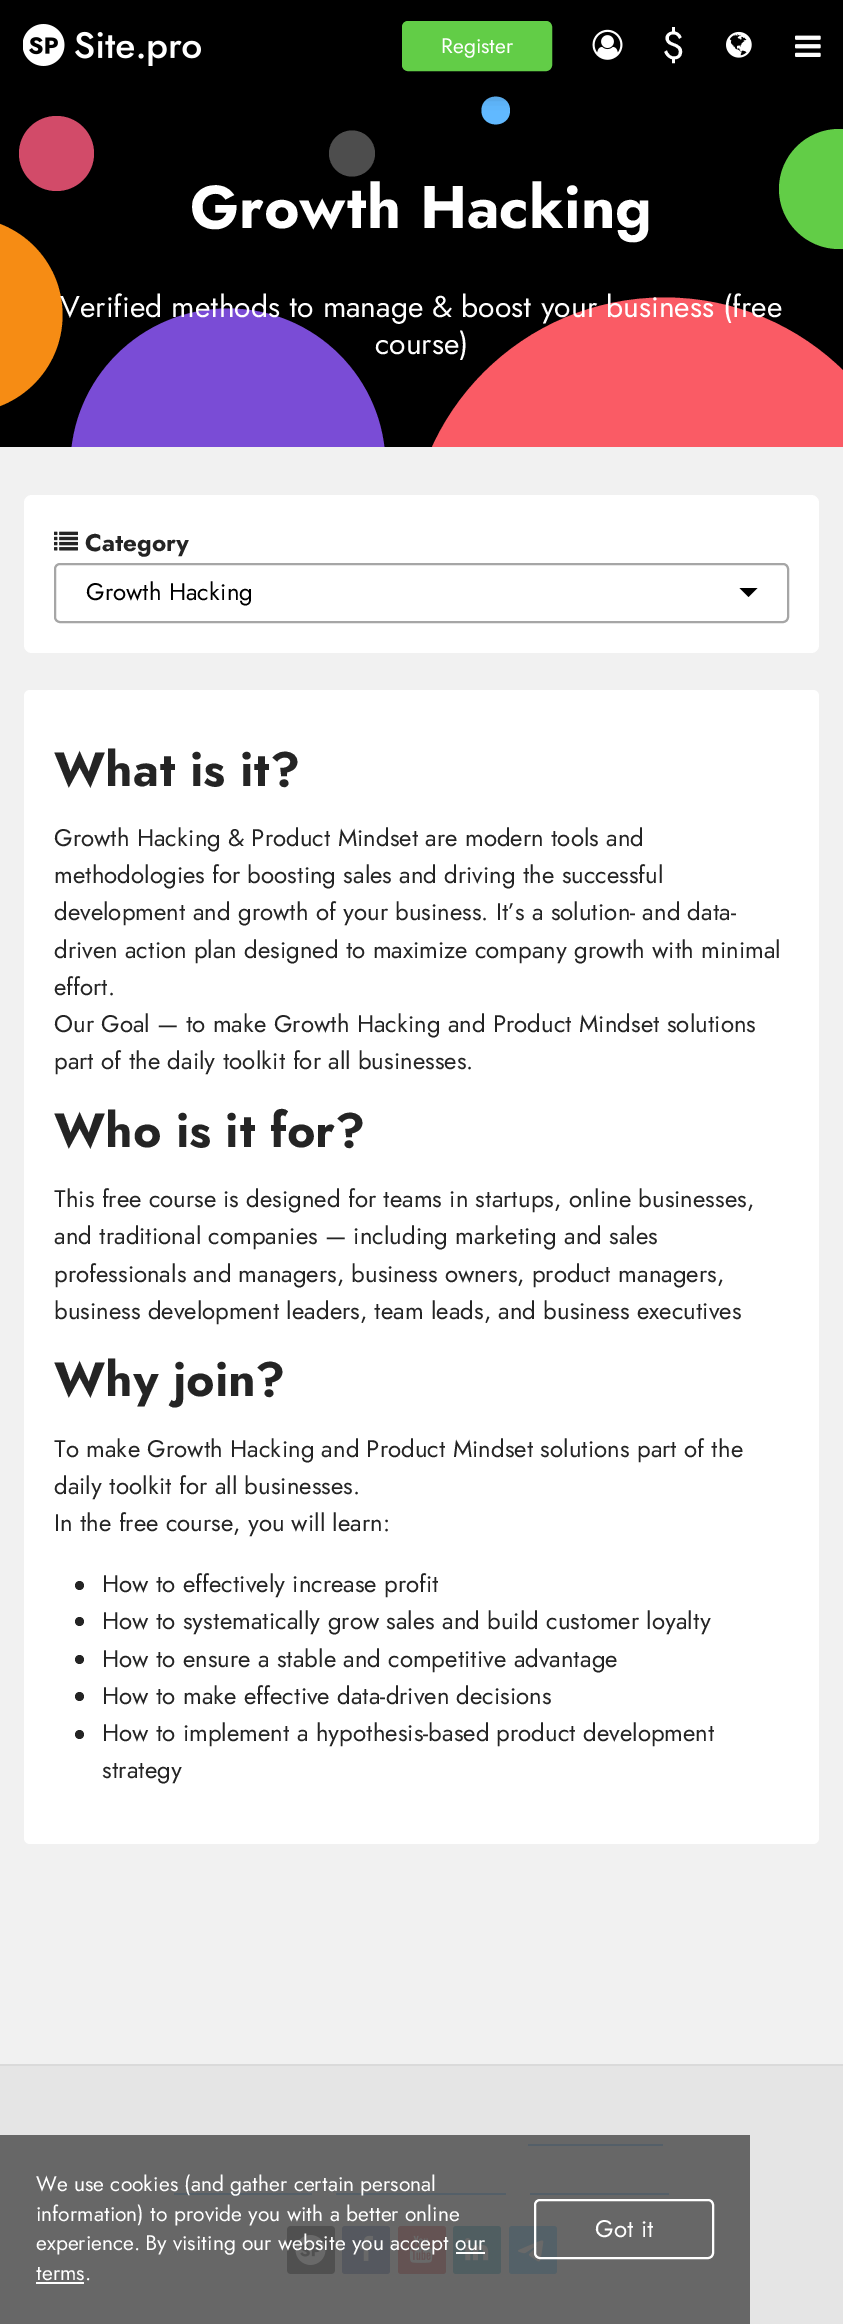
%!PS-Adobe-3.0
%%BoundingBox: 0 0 843 2324
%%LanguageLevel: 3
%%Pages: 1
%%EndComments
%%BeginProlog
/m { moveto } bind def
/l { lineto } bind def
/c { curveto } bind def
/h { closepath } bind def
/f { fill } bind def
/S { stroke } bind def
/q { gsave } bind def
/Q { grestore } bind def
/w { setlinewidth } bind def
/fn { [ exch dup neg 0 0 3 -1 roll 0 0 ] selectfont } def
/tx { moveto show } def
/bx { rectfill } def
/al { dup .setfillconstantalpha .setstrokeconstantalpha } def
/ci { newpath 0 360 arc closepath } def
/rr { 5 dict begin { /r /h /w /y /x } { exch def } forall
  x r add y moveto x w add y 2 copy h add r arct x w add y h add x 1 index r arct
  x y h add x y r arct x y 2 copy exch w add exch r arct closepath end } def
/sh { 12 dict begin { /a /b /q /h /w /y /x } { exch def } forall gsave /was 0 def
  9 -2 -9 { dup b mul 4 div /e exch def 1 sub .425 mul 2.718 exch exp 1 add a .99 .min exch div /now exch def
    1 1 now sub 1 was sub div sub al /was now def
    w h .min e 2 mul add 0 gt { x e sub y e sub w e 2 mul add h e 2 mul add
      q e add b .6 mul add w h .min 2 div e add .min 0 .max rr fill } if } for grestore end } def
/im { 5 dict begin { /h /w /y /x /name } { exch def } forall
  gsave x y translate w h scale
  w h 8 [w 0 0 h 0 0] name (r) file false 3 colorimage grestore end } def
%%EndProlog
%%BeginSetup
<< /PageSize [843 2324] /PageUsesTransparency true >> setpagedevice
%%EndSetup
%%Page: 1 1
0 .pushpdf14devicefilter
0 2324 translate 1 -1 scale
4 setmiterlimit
0.945 setgray
0 0 843 2324 bx
0 setgray
0 90 843 357 bx
0.824 0.294 0.412 setrgbcolor
56.5 153.5 37.5 ci f
0.38 0.725 1 setrgbcolor
510 110.5 m 510 129 481.5 129 481.5 110.5 c 481.5 92 510 92 510 110.5 c h f
0 setgray
9 18 825 72 0 9 0.5 sh
0 0 843 90 bx
(image0.raw) 23 24 178 42 im
0.384 0.804 0.278 setrgbcolor
403 22 148 48 5 rr q f Q
2 w
S
/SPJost-Regular 21 fn
1 setgray
(Register) 441 53 tx
(image1.raw) 592 29 31 31 im
/SPJost-Regular 39 fn
($) 662 59 tx
(image2.raw) 726 31 26 27 im
(image3.raw) 795 35 26 22 im
q
0 90 843 357 rectclip
0.478 0.298 0.839 setrgbcolor
228 466 157.5 ci f
0.98 0.357 0.396 setrgbcolor
664.5 553 255.5 ci f
Q
0.384 0.804 0.278 setrgbcolor
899 189 m 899 222 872 249 839 249 c 806 249 779 222 779 189 c 779 156 806 129 839 129 c 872 129 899 156 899 189 c h f
0.965 0.549 0.078 setrgbcolor
-35 315 97.5 ci f
0.302 setgray
352 153.5 23 ci f
/Jost-Bold 60 fn
1 setgray
(Growth Hacking) 190 228 tx
/SPJost-Regular 30 fn
(Verified methods to manage & boost your business \(free) 60 317 tx
(course\)) 375 354 tx
24 495 795 158 8 rr f
(image4.raw) 54 531 24 20 im
/Jost-Bold 24 fn
0.141 setgray
(Category) 85 551 tx
0.651 setgray
55 564 733 58 5 rr S
/SPJost-Regular 24 fn
0 setgray
(Growth Hacking) 86 600 tx
739.5 588 m 757.5 588 l 748.5 597 l h f
1 setgray
24 690 795 1154 6 rr f
/Jost-Bold 48 fn
0.141 setgray
(What is it?) 54 786 tx
/SPJost-Regular 24 fn
(Growth Hacking & Product Mindset are modern tools and) 54 846 tx
(methodologies for boosting sales and driving the successful) 54 883 tx
(development and growth of your business. It’s a solution- and data-) 54 920 tx
(driven action plan designed to maximize company growth with minimal) 54 958 tx
(effort.) 54 995 tx
(Our Goal — to make Growth Hacking and Product Mindset solutions) 54 1032 tx
(part of the daily toolkit for all businesses.) 54 1069 tx
/Jost-Bold 48 fn
(Who is it for?) 54 1147 tx
/SPJost-Regular 24 fn
(This free course is designed for teams in startups, online businesses,) 54 1207 tx
(and traditional companies — including marketing and sales) 54 1244 tx
(professionals and managers, business owners, product managers,) 54 1282 tx
(business development leaders, team leads, and business executives) 54 1319 tx
/Jost-Bold 48 fn
(Why join?) 54 1396 tx
/SPJost-Regular 24 fn
(To make Growth Hacking and Product Mindset solutions part of the) 54 1457 tx
(daily toolkit for all businesses.) 54 1494 tx
(In the free course, you will learn:) 54 1531 tx
79.5 1585.5 4.5 ci f
(How to effectively increase profit) 102 1592 tx
79.5 1621.5 4.5 ci f
(How to systematically grow sales and build customer loyalty) 102 1629 tx
79.5 1659.5 4.5 ci f
(How to ensure a stable and competitive advantage) 102 1667 tx
79.5 1696.5 4.5 ci f
(How to make effective data-driven decisions) 102 1704 tx
79.5 1734.5 4.5 ci f
(How to implement a hypothesis-based product development) 102 1741 tx
(strategy) 102 1778 tx
0.898 setgray
0 2066 843 258 bx
0.855 setgray
0 2064 843 2 bx
0.129 0.588 0.953 setrgbcolor
528 2144 135 2 bx
174 2193 138 2 bx
336 2193 170 2 bx
530 2193 139 2 bx
(image5.raw) 287 2226 48 48 im
0.2 0.325 0.592 setrgbcolor
342 2226 48 48 3 rr f
(image6.raw) 359 2235 14 26 im
0.8 0.094 0.118 setrgbcolor
398 2226 48 48 3 rr f
(image7.raw) 409 2235 24 28 im
0.004 0.561 0.686 setrgbcolor
453 2226 48 48 3 rr f
(image8.raw) 465 2238 24 23 im
0.165 0.671 0.933 setrgbcolor
509 2226 48 48 3 rr f
(image9.raw) 518 2240 26 22 im
0.9 al
0.349 setgray
0 2135 750 189 bx
/SPJost-Regular 21 fn
1 al
1 setgray
(We use cookies \(and gather certain personal) 36 2191 tx
(information\) to provide you with a better online) 36 2221 tx
(experience. By visiting our website you accept our) 36 2250 tx
(terms.) 36 2280 tx
456 2252 29 2 bx
36 2282 48 2 bx
535 2200 178 58 5 rr S
/SPJost-Regular 24 fn
(Got it) 595 2237 tx
.poppdf14devicefilter showpage
%%EOF
